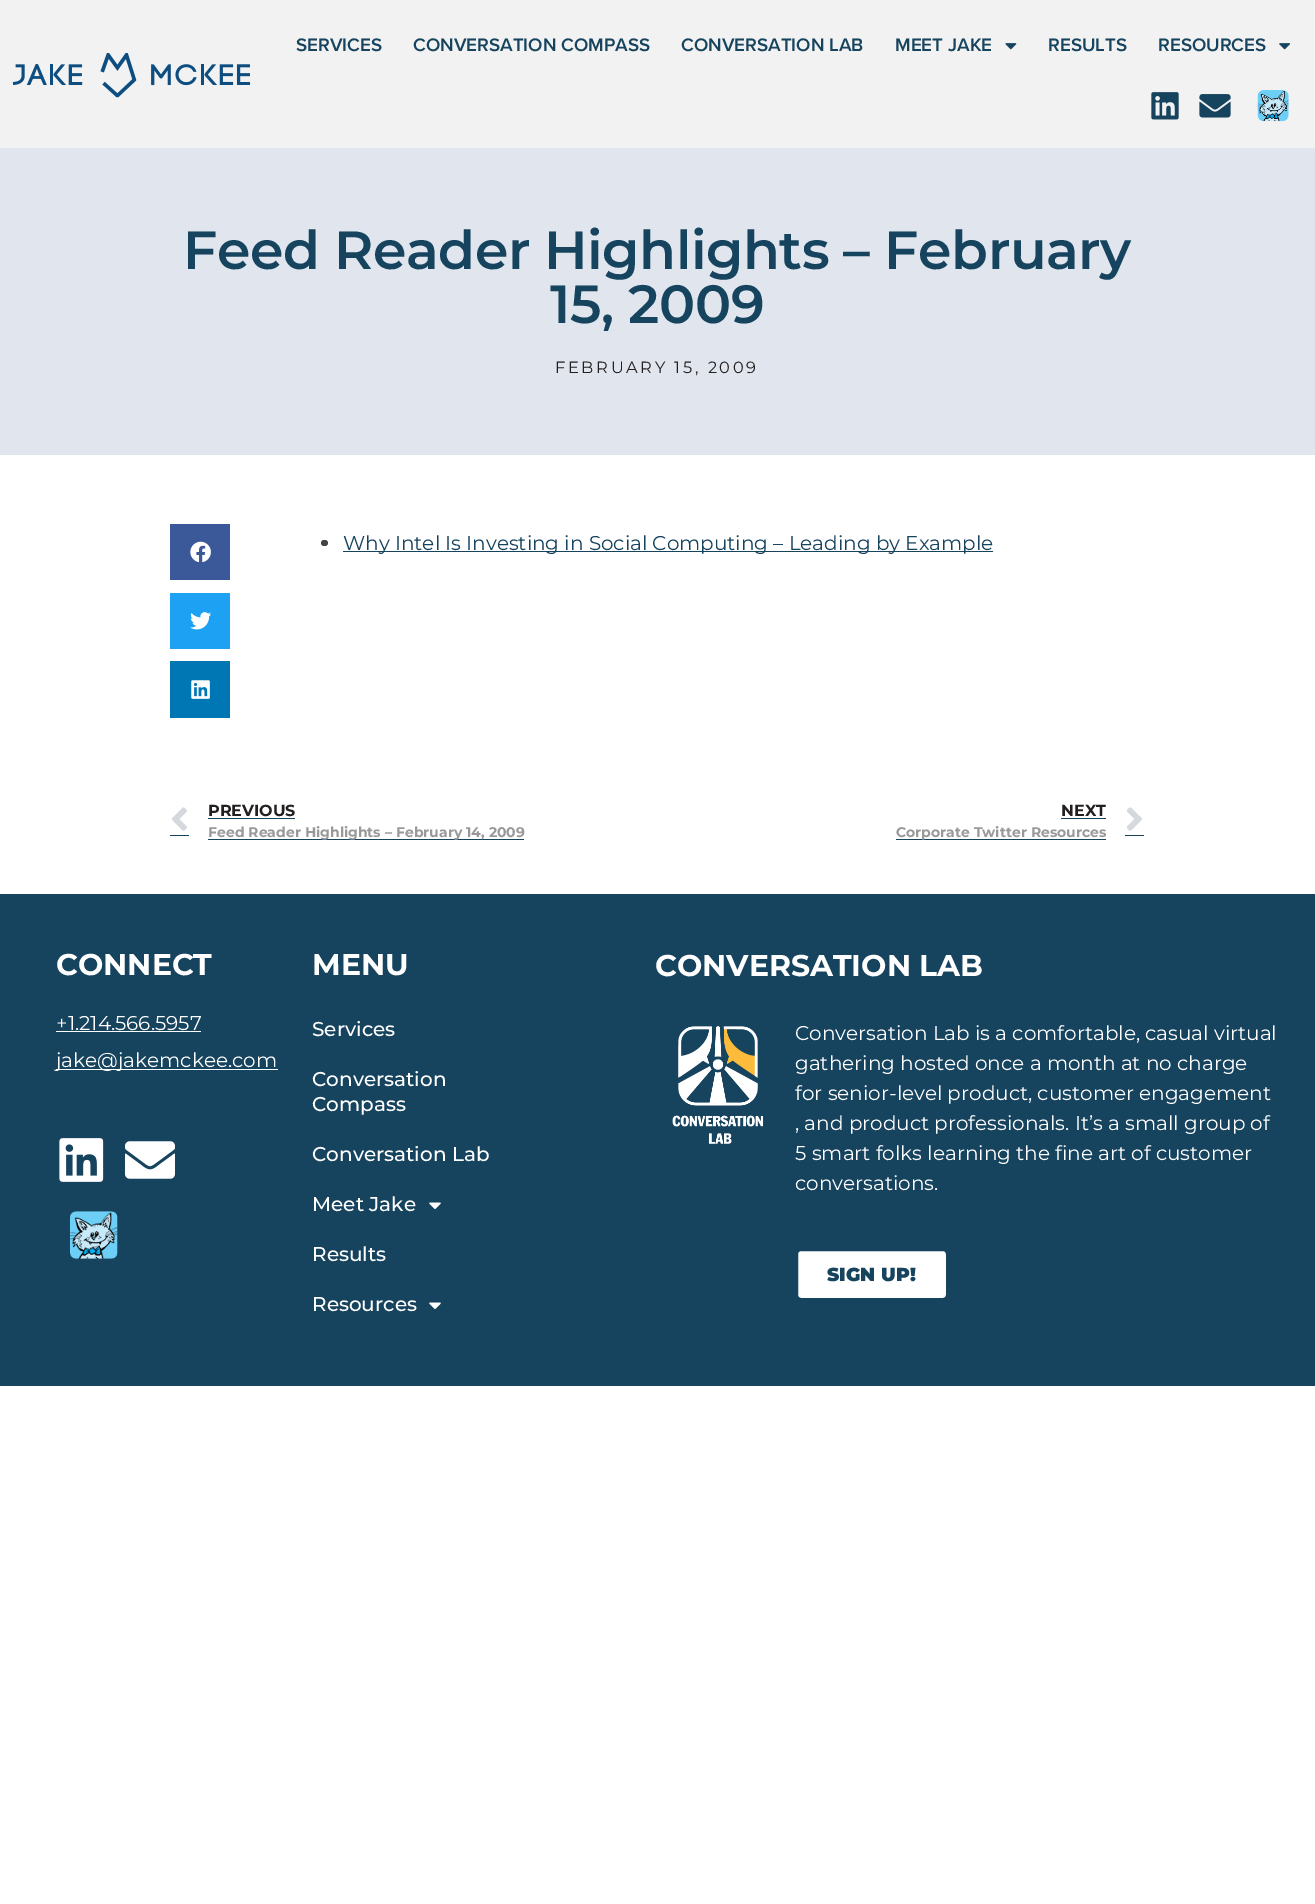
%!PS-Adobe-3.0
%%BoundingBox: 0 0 1315 1904
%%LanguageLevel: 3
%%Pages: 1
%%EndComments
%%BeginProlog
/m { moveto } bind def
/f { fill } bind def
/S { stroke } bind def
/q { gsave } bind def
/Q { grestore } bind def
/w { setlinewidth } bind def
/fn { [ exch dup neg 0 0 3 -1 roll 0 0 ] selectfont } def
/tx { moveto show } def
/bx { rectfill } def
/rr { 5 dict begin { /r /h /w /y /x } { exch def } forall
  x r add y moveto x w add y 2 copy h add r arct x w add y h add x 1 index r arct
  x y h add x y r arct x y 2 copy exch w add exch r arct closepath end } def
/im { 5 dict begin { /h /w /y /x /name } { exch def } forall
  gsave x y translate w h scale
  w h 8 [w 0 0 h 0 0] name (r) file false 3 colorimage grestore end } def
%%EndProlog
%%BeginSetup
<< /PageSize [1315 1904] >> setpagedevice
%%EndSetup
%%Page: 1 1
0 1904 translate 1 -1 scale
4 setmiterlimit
1 setgray
0 0 1315 1904 bx
0.949 setgray
0 0 1315 148 bx
/ProximaNova-SemiBold 18.75 fn
0.086 0.263 0.365 setrgbcolor
(SERVICES) 296 51 tx
(CONVERSATION COMPASS) 413 51 tx
(CONVERSATION LAB) 681 51 tx
(MEET JAKE) 895 51 tx
(image0.raw) 1005 43 12 7 im
(RESULTS) 1048 51 tx
(RESOURCES) 1158 51 tx
(image1.raw) 1279 43 11 7 im
(image2.raw) 1151 92 28 28 im
(image3.raw) 1199 94 32 24 im
(image4.raw) 1257 90 32 32 im
(image5.raw) 13 53 237 45 im
0.878 0.898 0.933 setrgbcolor
0 148 1315 307 bx
/Montserrat-SemiBold 53.75 fn
0.086 0.263 0.365 setrgbcolor
183 269 m -0.4 0 (Feed Reader Highlights – February) ashow
550 323 m -0.4 0 (15, 2009) ashow
/Montserrat-Regular 16.25 fn
0.137 0.122 0.125 setrgbcolor
555 373 m 2.6 0 (FEBRUARY 15, 2009) ashow
0.231 0.349 0.596 setrgbcolor
170 524 60 56 bx
(image6.raw) 190 541 21 22 im
0.114 0.631 0.949 setrgbcolor
170 593 60 56 bx
(image7.raw) 190 612 22 18 im
0 0.467 0.71 setrgbcolor
170 661 60 57 bx
(image8.raw) 191 680 19 19 im
0.267 setgray
321 540 7 6 3 rr f
0.086 0.263 0.365 setrgbcolor
343 551 650 1 bx
/Montserrat-Regular 20 fn
(Why Intel Is Investing in Social Computing – Leading by Example) 343 550 tx
(image9.raw) 172 807 15 24 im
170 835 19 1 bx
/Montserrat-Bold 16 fn
0.137 0.122 0.125 setrgbcolor
(PREVIOUS) 208 816 tx
0.086 0.263 0.365 setrgbcolor
208 818 87 1 bx
208 839 316 1 bx
/Montserrat-Bold 14 fn
0.6 setgray
(Feed Reader Highlights – February 14, 2009) 208 837 tx
/Montserrat-Bold 16 fn
0.137 0.122 0.125 setrgbcolor
(NEXT) 1061 816 tx
0.086 0.263 0.365 setrgbcolor
1061 818 45 1 bx
896 839 210 1 bx
/Montserrat-Bold 14 fn
0.6 setgray
(Corporate Twitter Resources) 896 837 tx
(image10.raw) 1126 807 16 24 im
0.086 0.263 0.365 setrgbcolor
1125 835 19 1 bx
0 894 1315 492 bx
/Montserrat-Bold 30 fn
1 setgray
(CONNECT) 56 975 tx
/Montserrat-Regular 20 fn
(+1.214.566.5957) 56 1030 tx
56 1031 145 1 bx
56 1069 222 1 bx
(jake@jakemckee.com) 56 1067 tx
(image11.raw) 59 1138 45 44 im
(image12.raw) 125 1141 50 38 im
(image13.raw) 70 1211 48 48 im
/Montserrat-Bold 30 fn
(MENU) 312 975 tx
/Montserrat-Medium 20 fn
(Services) 312 1036 tx
(Conversation) 312 1086 tx
(Compass) 312 1111 tx
(Conversation Lab) 312 1161 tx
(Meet Jake) 312 1211 tx
(image14.raw) 429 1202 12 7 im
(Results) 312 1261 tx
(Resources) 312 1311 tx
(image14.raw) 429 1302 12 7 im
/Montserrat-Bold 30 fn
(CONVERSATION LAB) 655 976 tx
(image15.raw) 672 1026 92 118 im
/Montserrat-Regular 20 fn
(Conversation Lab is a comfortable, casual virtual) 795 1040 tx
(gathering hosted once a month at no charge) 795 1070 tx
(for senior-level product, customer engagement) 795 1100 tx
(, and product professionals. It’s a small group of) 795 1130 tx
(5 smart folks learning the fine art of customer) 795 1160 tx
(conversations.) 795 1190 tx
796.5 1249.5 151 50 4.5 rr q f Q
0.086 0.263 0.365 setrgbcolor
3 w
S
/Montserrat-Black 18.75 fn
(SIGN UP!) 827 1281 tx
showpage
%%EOF
